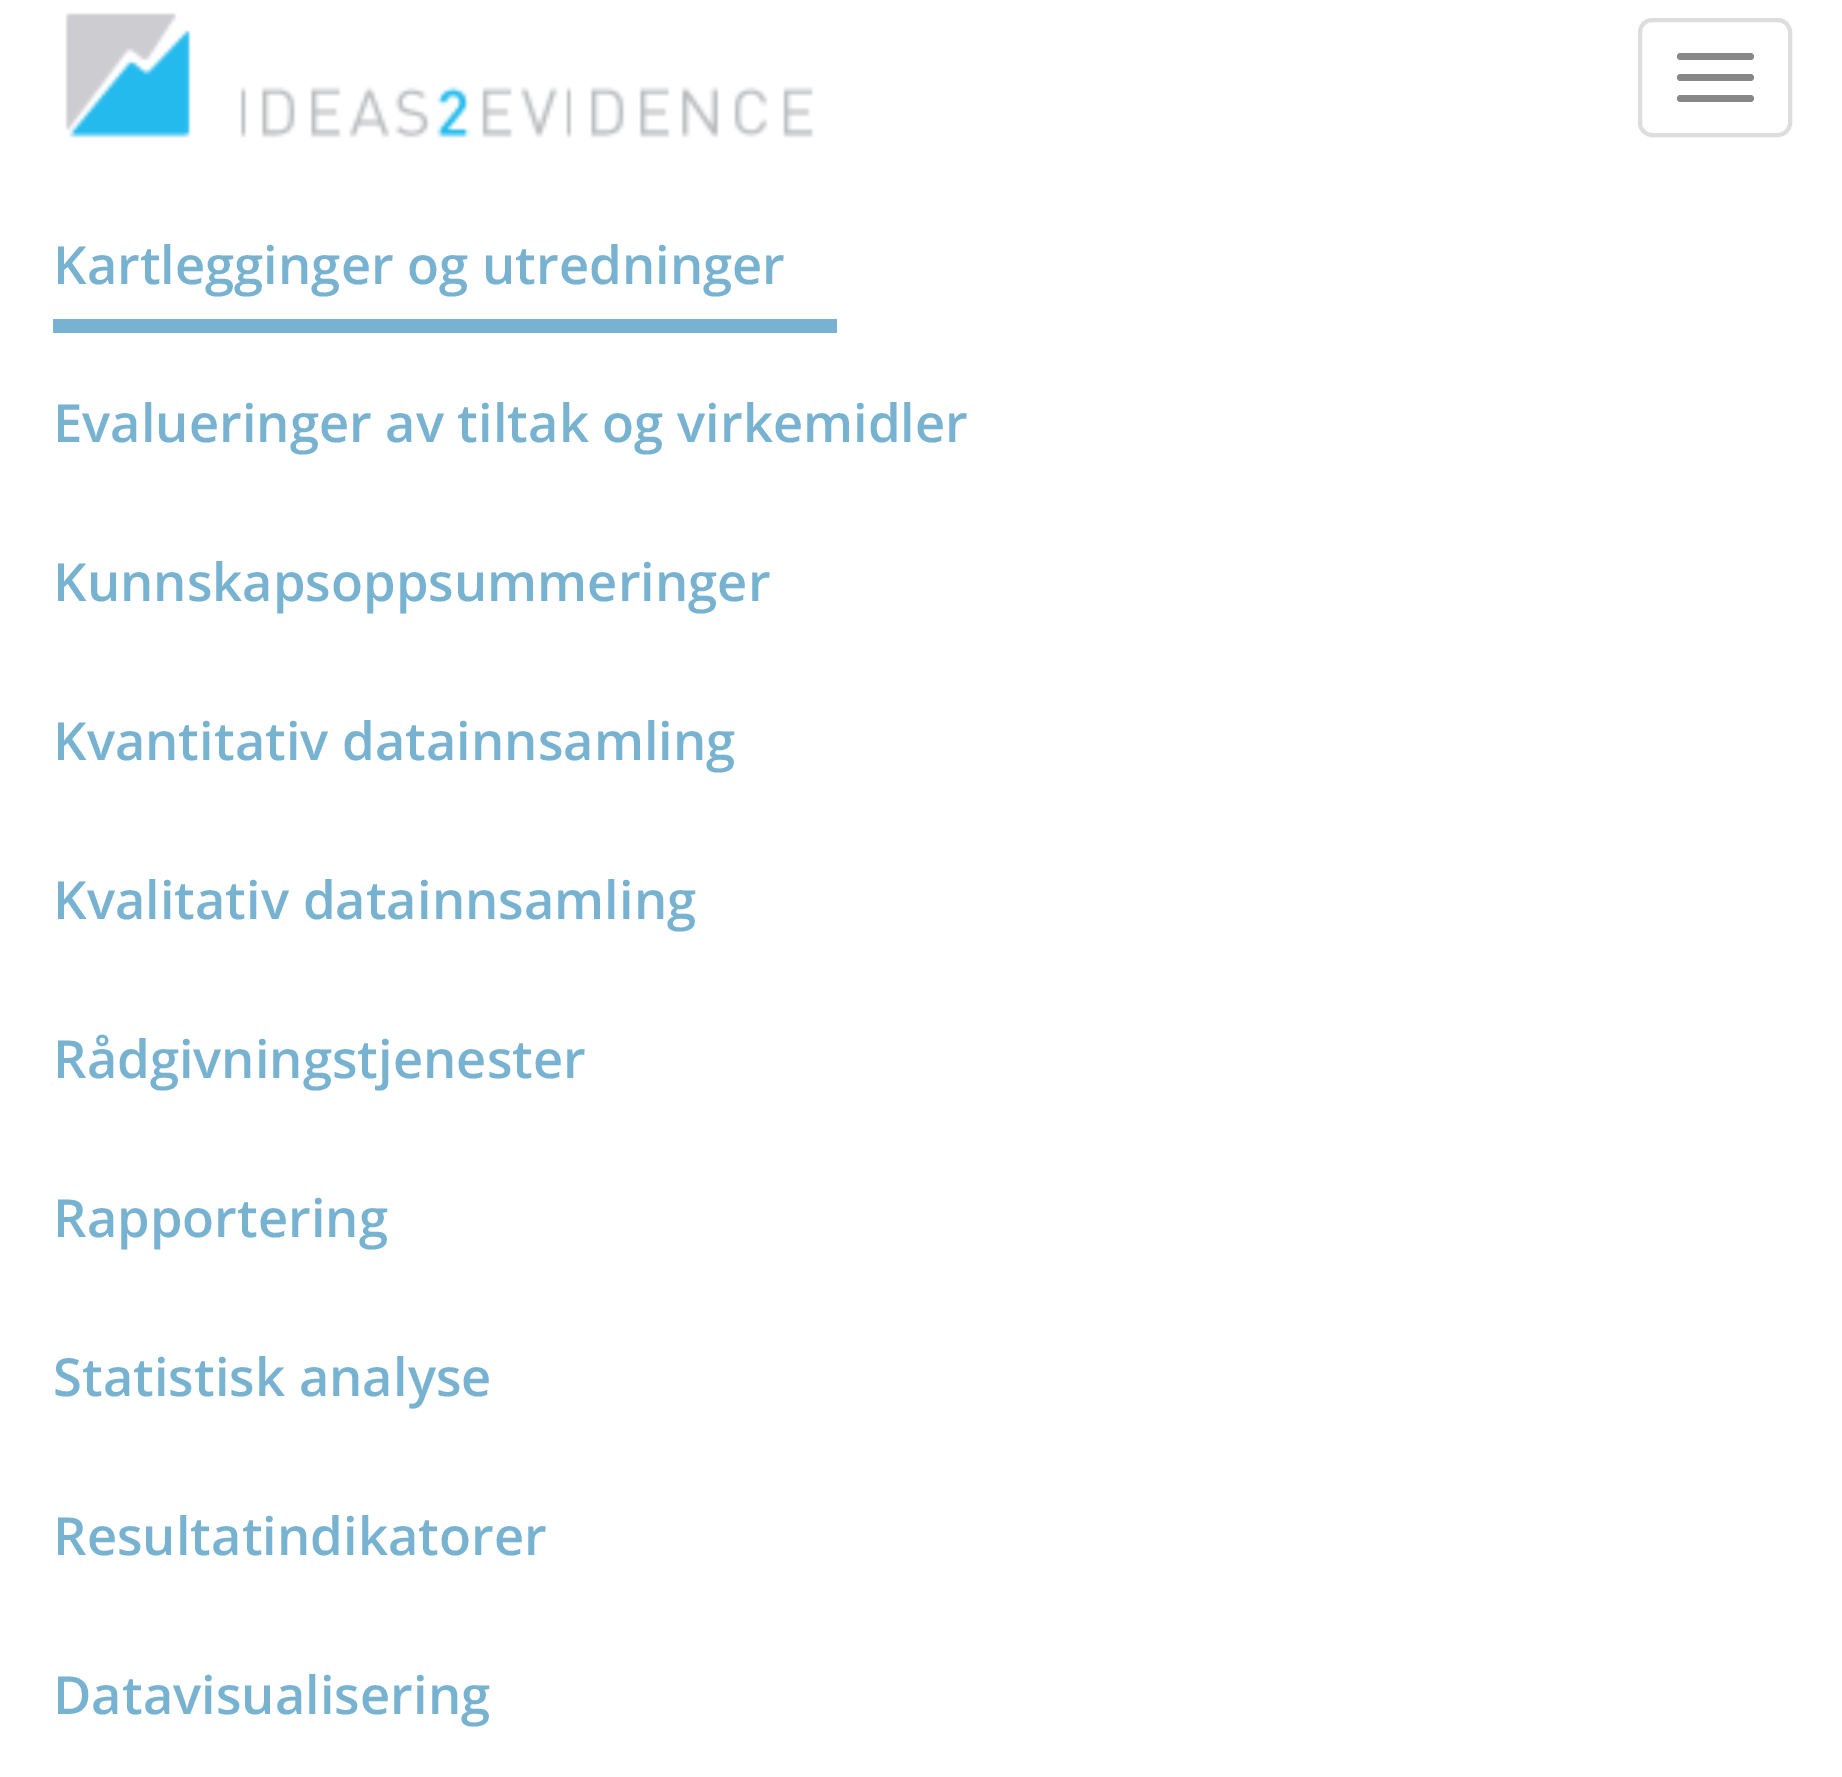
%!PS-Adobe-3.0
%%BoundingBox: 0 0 1842 1777
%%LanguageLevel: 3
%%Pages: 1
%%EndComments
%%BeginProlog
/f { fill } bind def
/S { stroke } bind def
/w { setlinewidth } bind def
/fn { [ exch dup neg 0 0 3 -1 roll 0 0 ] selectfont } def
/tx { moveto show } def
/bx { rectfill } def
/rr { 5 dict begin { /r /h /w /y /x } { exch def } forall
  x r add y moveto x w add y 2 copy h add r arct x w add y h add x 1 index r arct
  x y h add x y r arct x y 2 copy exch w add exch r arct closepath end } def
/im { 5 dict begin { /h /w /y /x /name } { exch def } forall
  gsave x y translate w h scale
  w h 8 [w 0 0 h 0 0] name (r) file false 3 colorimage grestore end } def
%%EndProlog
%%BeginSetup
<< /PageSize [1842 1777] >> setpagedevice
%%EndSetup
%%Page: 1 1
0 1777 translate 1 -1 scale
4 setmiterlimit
1 setgray
0 0 1842 1777 bx
(image0.raw) 65 12 749 126 im
0.867 setgray
4 w
1640 20 150 115 12 rr S
0.533 setgray
1677 53 77 7 3.5 rr f
1677 74 77 7 3.5 rr f
1677 95 77 7 3.5 rr f
0.471 0.698 0.82 setrgbcolor
53 319 784 14 bx
/OpenSans-SemiBold 52.5 fn
(Kartlegginger og utredninger) 53 284 tx
(Evalueringer av tiltak og virkemidler) 53 442 tx
(Kunnskapsoppsummeringer) 53 601 tx
(Kvantitativ datainnsamling) 53 760 tx
(Kvalitativ datainnsamling) 53 919 tx
(Rådgivningstjenester) 53 1078 tx
(Rapportering) 53 1237 tx
(Statistisk analyse) 53 1396 tx
(Resultatindikatorer) 53 1555 tx
(Datavisualisering) 53 1714 tx
showpage
%%EOF
